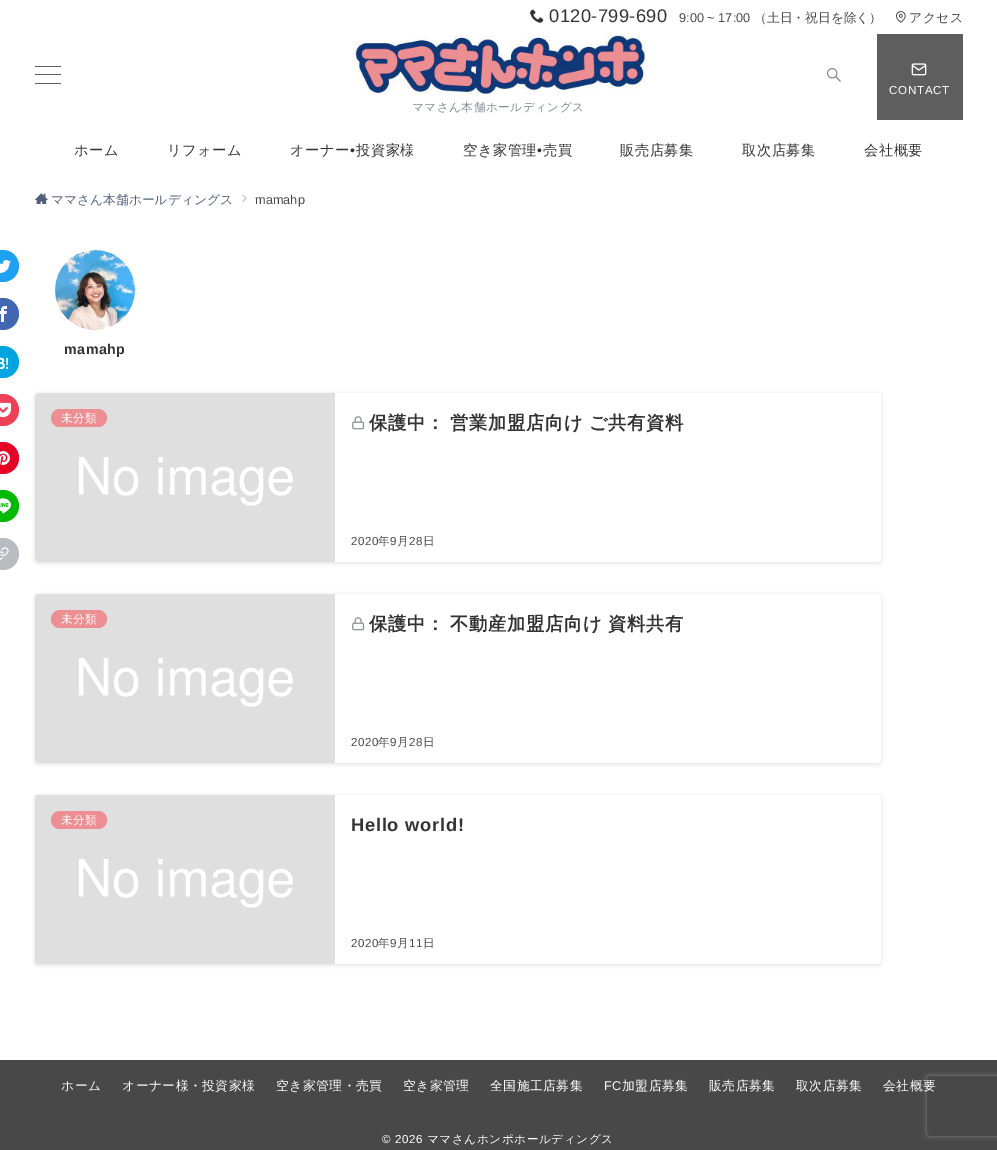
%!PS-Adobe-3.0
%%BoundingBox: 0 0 997 1150
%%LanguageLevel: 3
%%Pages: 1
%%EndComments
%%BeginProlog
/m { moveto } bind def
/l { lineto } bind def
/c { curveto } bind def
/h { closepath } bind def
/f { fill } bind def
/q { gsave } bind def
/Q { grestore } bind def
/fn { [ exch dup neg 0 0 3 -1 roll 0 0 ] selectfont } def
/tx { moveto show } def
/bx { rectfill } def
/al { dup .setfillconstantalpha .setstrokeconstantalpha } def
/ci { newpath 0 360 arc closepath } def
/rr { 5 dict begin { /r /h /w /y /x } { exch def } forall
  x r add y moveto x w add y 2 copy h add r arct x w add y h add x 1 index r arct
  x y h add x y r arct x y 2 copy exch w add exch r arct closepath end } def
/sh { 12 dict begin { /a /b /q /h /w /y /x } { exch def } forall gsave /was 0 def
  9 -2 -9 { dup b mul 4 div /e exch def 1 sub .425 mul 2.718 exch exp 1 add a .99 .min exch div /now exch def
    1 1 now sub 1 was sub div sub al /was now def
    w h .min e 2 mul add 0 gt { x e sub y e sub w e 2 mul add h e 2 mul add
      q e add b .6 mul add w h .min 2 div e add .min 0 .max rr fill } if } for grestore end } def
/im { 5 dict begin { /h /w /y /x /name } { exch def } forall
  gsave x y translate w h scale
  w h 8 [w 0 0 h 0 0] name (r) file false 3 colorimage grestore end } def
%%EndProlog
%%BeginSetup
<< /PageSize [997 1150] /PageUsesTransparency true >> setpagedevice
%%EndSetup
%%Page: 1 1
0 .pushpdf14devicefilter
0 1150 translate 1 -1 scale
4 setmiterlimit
1 setgray
0 0 997 1150 bx
(image0.raw) 530 9 14 14 im
/LiberationSans-Regular 18.25 fn
0.2 setgray
549 22 m 0.4 0 (0120-799-690) ashow
/LiberationSans-Regular 12.75 fn
0.282 setgray
(9:00 ~ 17:00) 679 22 tx
/WenQuanYiZenHei-Medium 12.75 fn
(（土日・祝日を除く）) 754 22 tx
(image1.raw) 896 11 10 12 im
909 22 m 0.5 0 (アクセス) ashow
0.369 setgray
35 66 26 1 0.5 rr f
35 74 26 1 0.5 rr f
35 83 26 1 0.5 rr f
(image2.raw) 827 68 14 14 im
877 34 86 86 bx
(image3.raw) 911 63 16 13 im
/LiberationSans-Regular 11.6 fn
1 setgray
889 94 m 0.75 0 (CONTACT) ashow
(image4.raw) 352 35 294 60 im
/WenQuanYiZenHei-Medium 11.6 fn
0.51 0.537 0.565 setrgbcolor
412 111 m 0.5 0 (ママさん本舗ホールディングス) ashow
/WenQuanYiZenHei-Medium 14.25 fn
0.2 setgray
74 155 m 0.5 0 (ホーム) ashow
167 155 m 0.5 0 (リフォーム) ashow
290 155 m 0.5 0 (オーナー) ashow
/LiberationSans-Regular 14.25 fn
350 155 m 0.5 0 (•) ashow
/WenQuanYiZenHei-Medium 14.25 fn
356 155 m 0.5 0 (投資家様) ashow
463 155 m 0.5 0 (空き家管理) ashow
/LiberationSans-Regular 14.25 fn
537 155 m 0.5 0 (•) ashow
/WenQuanYiZenHei-Medium 14.25 fn
543 155 m 0.5 0 (売買) ashow
620 155 m 0.5 0 (販売店募集) ashow
742 155 m 0.5 0 (取次店募集) ashow
864 155 m 0.5 0 (会社概要) ashow
(image5.raw) 35 193 13 11 im
/WenQuanYiZenHei-Medium 12.75 fn
0.314 0.376 0.486 setrgbcolor
(ママさん本舗ホールディングス) 51 204 tx
(image6.raw) 242 194 5 8 im
/LiberationSans-Regular 12.75 fn
0.282 setgray
(mamahp) 255 204 tx
(image7.raw) 55 250 80 80 im
/LiberationSans-Bold 14.25 fn
0.2 setgray
64 354 m 0.5 0 (mamahp) ashow
0.114 0.631 0.949 setrgbcolor
3 266 16 ci f
(image8.raw) 0 260 11 13 im
0.259 0.404 0.698 setrgbcolor
3 314 16 ci f
(image9.raw) 0 306 7 16 im
0 0.643 0.871 setrgbcolor
3 362 16 ci f
/Quicksand-Bold 16 fn
1 setgray
(B!) -5 369 tx
0.933 0.251 0.337 setrgbcolor
3 410 16 ci f
(image10.raw) 0 402 11 16 im
0.902 0 0.137 setrgbcolor
3 458 16 ci f
(image11.raw) 0 451 10 14 im
0 0.725 0 setrgbcolor
3 506 16 ci f
(image12.raw) 0 498 11 16 im
0.722 0.737 0.753 setrgbcolor
3 554 16 ci f
(image13.raw) 0 547 9 13 im
0 setgray
34 393 848 171 4 1.5 0.08 sh
1 setgray
35 393 846 169 3 rr f
(image14.raw) 35 393 300 169 im
0.925 0.557 0.573 setrgbcolor
51 409 56 18 9 rr f
/WenQuanYiZenHei-Medium 11.6 fn
1 setgray
61 422 m 0.5 0 (未分類) ashow
(image15.raw) 352 416 13 14 im
/WenQuanYiZenHei-Bold 18.25 fn
0.2 setgray
369 429 m -1 0 32 0.75 0 (保護中： 営業加盟店向け ご共有資料) awidthshow
/LiberationSans-Regular 11.6 fn
0.282 setgray
351 545 m 0.5 0 (2020) ashow
/WenQuanYiZenHei-Medium 11.6 fn
378 545 m 0.5 0 (年) ashow
/LiberationSans-Regular 11.6 fn
390 545 m 0.5 0 (9) ashow
/WenQuanYiZenHei-Medium 11.6 fn
397 545 m 0.5 0 (月) ashow
/LiberationSans-Regular 11.6 fn
409 545 m 0.5 0 (28) ashow
/WenQuanYiZenHei-Medium 11.6 fn
423 545 m 0.5 0 (日) ashow
0 setgray
34 594 848 171 4 1.5 0.08 sh
1 setgray
35 594 846 169 3 rr f
(image14.raw) 35 594 300 169 im
0.925 0.557 0.573 setrgbcolor
51 610 56 18 9 rr f
1 setgray
61 623 m 0.5 0 (未分類) ashow
(image15.raw) 352 617 13 14 im
/WenQuanYiZenHei-Bold 18.25 fn
0.2 setgray
369 630 m -1 0 32 0.75 0 (保護中： 不動産加盟店向け 資料共有) awidthshow
/LiberationSans-Regular 11.6 fn
0.282 setgray
351 746 m 0.5 0 (2020) ashow
/WenQuanYiZenHei-Medium 11.6 fn
378 746 m 0.5 0 (年) ashow
/LiberationSans-Regular 11.6 fn
390 746 m 0.5 0 (9) ashow
/WenQuanYiZenHei-Medium 11.6 fn
397 746 m 0.5 0 (月) ashow
/LiberationSans-Regular 11.6 fn
409 746 m 0.5 0 (28) ashow
/WenQuanYiZenHei-Medium 11.6 fn
423 746 m 0.5 0 (日) ashow
0 setgray
34 795 848 171 4 1.5 0.08 sh
1 setgray
35 795 846 169 3 rr f
(image14.raw) 35 795 300 169 im
0.925 0.557 0.573 setrgbcolor
51 811 56 18 9 rr f
1 setgray
61 824 m 0.5 0 (未分類) ashow
/LiberationSans-Bold 18.25 fn
0.2 setgray
351 831 m 0.75 0 (Hello world!) ashow
/LiberationSans-Regular 11.6 fn
0.282 setgray
351 947 m 0.5 0 (2020) ashow
/WenQuanYiZenHei-Medium 11.6 fn
378 947 m 0.5 0 (年) ashow
/LiberationSans-Regular 11.6 fn
390 947 m 0.5 0 (9) ashow
/WenQuanYiZenHei-Medium 11.6 fn
397 947 m 0.5 0 (月) ashow
/LiberationSans-Regular 11.6 fn
409 947 m 0.5 0 (11) ashow
/WenQuanYiZenHei-Medium 11.6 fn
423 947 m 0.5 0 (日) ashow
0 1060 997 90 bx
/WenQuanYiZenHei-Medium 12.75 fn
1 setgray
61 1090 m 0.5 0 (ホーム) ashow
122 1090 m 0.5 0 (オーナー様・投資家様) ashow
276 1090 m 0.5 0 (空き家管理・売買) ashow
403 1090 m 0.5 0 (空き家管理) ashow
490 1090 m 0.5 0 (全国施工店募集) ashow
/LiberationSans-Regular 12.75 fn
604 1090 m 0.5 0 (FC) ashow
/WenQuanYiZenHei-Medium 12.75 fn
622 1090 m 0.5 0 (加盟店募集) ashow
709 1090 m 0.5 0 (販売店募集) ashow
796 1090 m 0.5 0 (取次店募集) ashow
q
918 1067 m 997 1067 l 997 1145 l 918 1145 l h 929 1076 m 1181 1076 l 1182 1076 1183 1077 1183 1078 c 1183 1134 l 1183 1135 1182 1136 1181 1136 c 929 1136 l 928 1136 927 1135 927 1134 c 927 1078 l 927 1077 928 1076 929 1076 c h eoclip newpath
0.502 setgray
927 1076 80 60 2 2.5 1 sh
Q
883 1090 m 0.5 0 (会社概要) ashow
/LiberationSans-Regular 11.6 fn
382 1143 m 0.6 0 (© 2026) ashow
/WenQuanYiZenHei-Medium 11.6 fn
427 1143 m 0.6 0 (ママさんホンポホールディングス) ashow
.poppdf14devicefilter showpage
%%EOF
